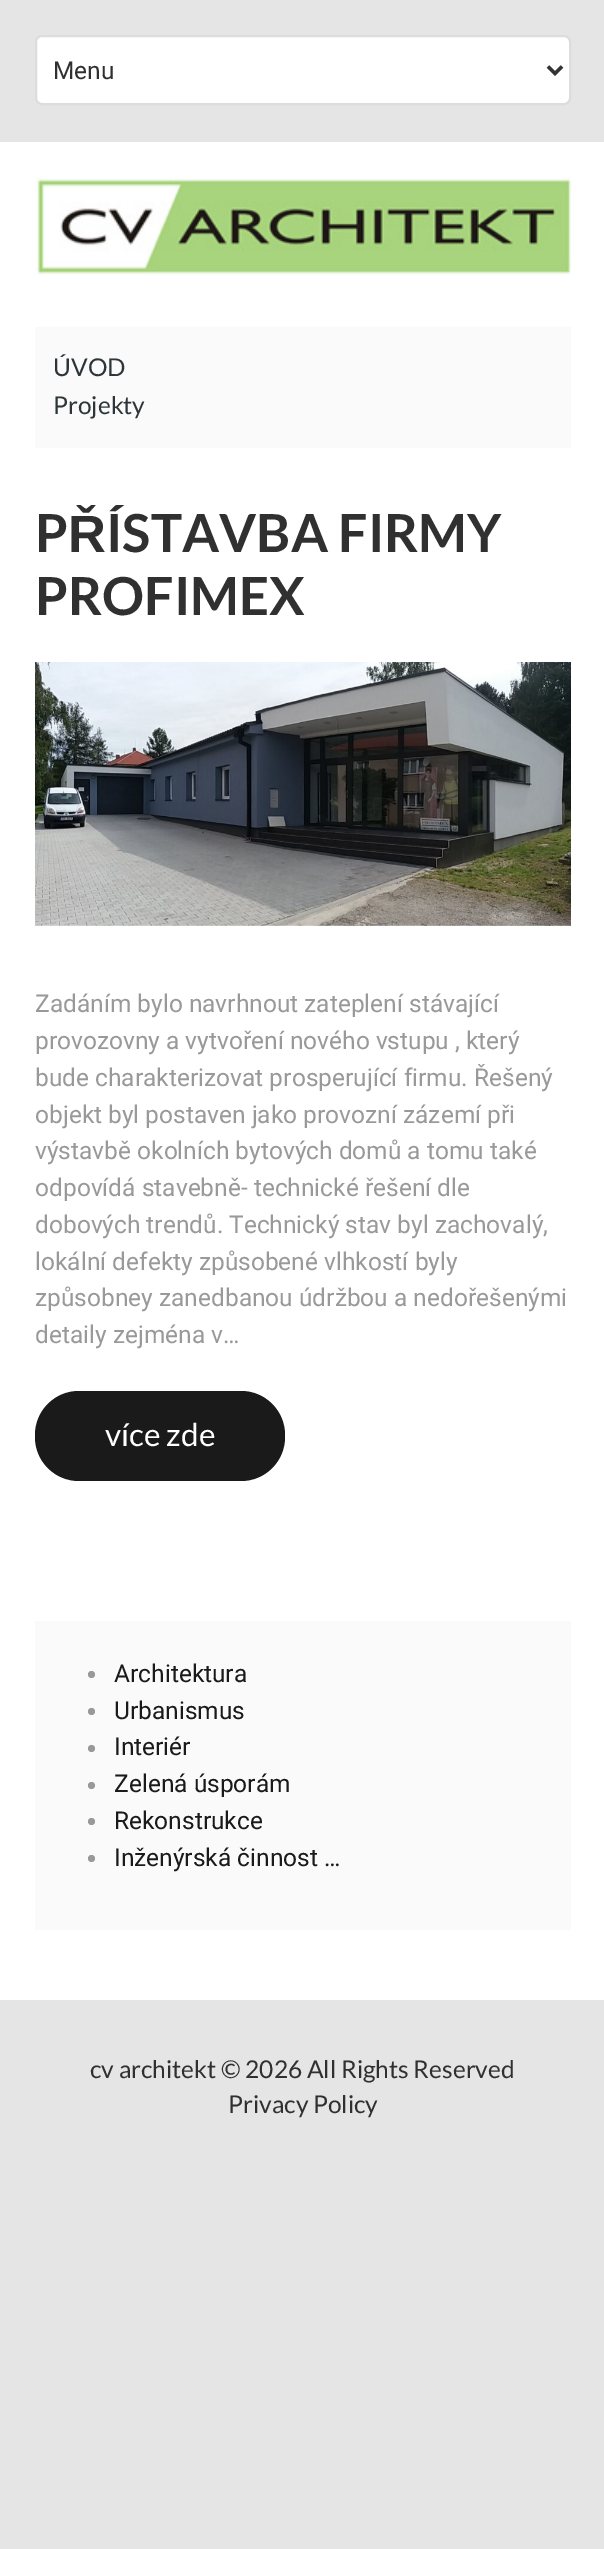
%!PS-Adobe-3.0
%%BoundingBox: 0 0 604 2549
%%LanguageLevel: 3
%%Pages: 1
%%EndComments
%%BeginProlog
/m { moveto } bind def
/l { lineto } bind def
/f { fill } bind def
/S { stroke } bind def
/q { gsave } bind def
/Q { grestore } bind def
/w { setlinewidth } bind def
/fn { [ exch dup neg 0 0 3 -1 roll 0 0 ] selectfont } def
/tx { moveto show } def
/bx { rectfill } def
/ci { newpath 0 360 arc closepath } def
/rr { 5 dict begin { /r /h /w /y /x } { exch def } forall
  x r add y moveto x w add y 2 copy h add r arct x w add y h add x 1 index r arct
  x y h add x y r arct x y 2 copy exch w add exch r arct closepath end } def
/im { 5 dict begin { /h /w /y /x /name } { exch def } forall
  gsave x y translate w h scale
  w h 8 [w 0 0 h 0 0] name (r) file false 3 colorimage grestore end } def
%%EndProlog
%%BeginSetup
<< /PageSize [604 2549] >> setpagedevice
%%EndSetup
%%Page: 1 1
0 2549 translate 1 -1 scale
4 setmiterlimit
0.898 setgray
0 0 604 2549 bx
1 setgray
0 142 604 1858 bx
36 36 534 68 6 rr q f Q
0.867 setgray
2 w
S
0.2 setgray
3.5 w
548 66.5 m 555 73.5 l 562 66.5 l S
/Roboto-Regular 24.5 fn
0.188 setgray
(Menu) 53 79 tx
(image0.raw) 35 177 536 98 im
0.98 setgray
35 327 536 121 bx
/Lato-Regular 24.5 fn
0.173 0.212 0.22 setrgbcolor
(ÚVOD) 53 376 tx
(Projekty) 53 414 tx
/Lato-Bold 52.5 fn
0.188 setgray
(P) 35 552 tx
/LiberationSans-Bold 52.5 fn
(Ř) 68 552 tx
/Lato-Bold 52.5 fn
(ÍSTAVBA FIRMY) 106 552 tx
(PROFIMEX) 35 615 tx
(image1.raw) 35 662 536 264 im
/Roboto-Regular 24.5 fn
0.6 setgray
(Zadáním bylo navrhnout zateplení stávající) 35 1012 tx
(provozovny a vytvoření nového vstupu , který) 35 1049 tx
(bude charakterizovat prosperující firmu. Řešený) 35 1086 tx
(objekt byl postaven jako provozní zázemí při) 35 1123 tx
(výstavbě okolních bytových domů a tomu také) 35 1159 tx
(odpovídá stavebně- technické řešení dle) 35 1196 tx
(dobových trendů. Technický stav byl zachovalý,) 35 1233 tx
(lokální defekty způsobené vlhkostí byly) 35 1270 tx
(způsobney zanedbanou údržbou a nedořešenými) 35 1306 tx
(detaily zejména v…) 35 1343 tx
0.102 setgray
35 1391 250 90 44 rr f
/Lato-Regular 31.5 fn
1 setgray
(více zde) 105 1446 tx
0.98 setgray
35 1621 536 309 bx
0.6 setgray
91.5 1674.5 3.5 ci f
/Roboto-Regular 24.5 fn
0.102 setgray
(Architektura) 114 1682 tx
0.6 setgray
91.5 1711.5 3.5 ci f
0.102 setgray
(Urbanismus) 114 1719 tx
0.6 setgray
91.5 1748.5 3.5 ci f
0.102 setgray
(Interiér) 114 1755 tx
0.6 setgray
91.5 1785.5 3.5 ci f
0.102 setgray
(Zelená úsporám) 114 1792 tx
0.6 setgray
91.5 1821.5 3.5 ci f
0.102 setgray
(Rekonstrukce) 114 1829 tx
0.6 setgray
91.5 1858.5 3.5 ci f
0.102 setgray
(Inženýrská činnost …) 114 1866 tx
/Lato-Regular 24.5 fn
0.188 setgray
(cv architekt © 2026 All Rights Reserved) 90 2078 tx
(Privacy Policy) 228 2113 tx
showpage
%%EOF
